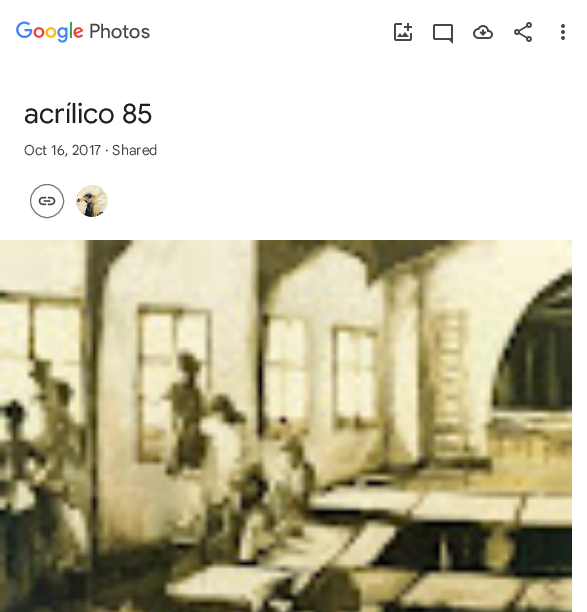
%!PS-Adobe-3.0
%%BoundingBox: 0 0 587 612
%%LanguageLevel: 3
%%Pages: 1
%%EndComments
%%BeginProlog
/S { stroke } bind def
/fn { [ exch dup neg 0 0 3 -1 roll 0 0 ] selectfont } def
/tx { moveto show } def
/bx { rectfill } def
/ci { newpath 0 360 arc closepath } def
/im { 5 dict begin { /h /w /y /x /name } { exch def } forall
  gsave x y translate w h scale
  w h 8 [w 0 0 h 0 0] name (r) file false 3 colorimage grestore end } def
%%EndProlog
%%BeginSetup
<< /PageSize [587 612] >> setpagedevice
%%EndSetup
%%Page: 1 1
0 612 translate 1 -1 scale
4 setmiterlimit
1 setgray
0 0 587 612 bx
(image0.raw) 16 21 68 22 im
/ProductSans-Regular 20 fn
0.267 0.278 0.275 setrgbcolor
(Photos) 89 38 tx
(image1.raw) 394 23 18 18 im
(image2.raw) 433 24 20 20 im
(image3.raw) 473 25 20 14 im
(image4.raw) 514 22 18 20 im
(image5.raw) 561 24 4 16 im
/GoogleSans-Regular 28 fn
0.122 setgray
(acrílico 85) 24 123 tx
/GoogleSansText-Regular 14 fn
0.267 0.278 0.275 setrgbcolor
(Oct 16, 2017 · Shared) 24 155 tx
0.455 0.467 0.459 setrgbcolor
47 201 16.5 ci S
(image6.raw) 38 196 18 10 im
(image7.raw) 76 185 32 32 im
(image8.raw) 0 240 572 372 im
showpage
%%EOF
